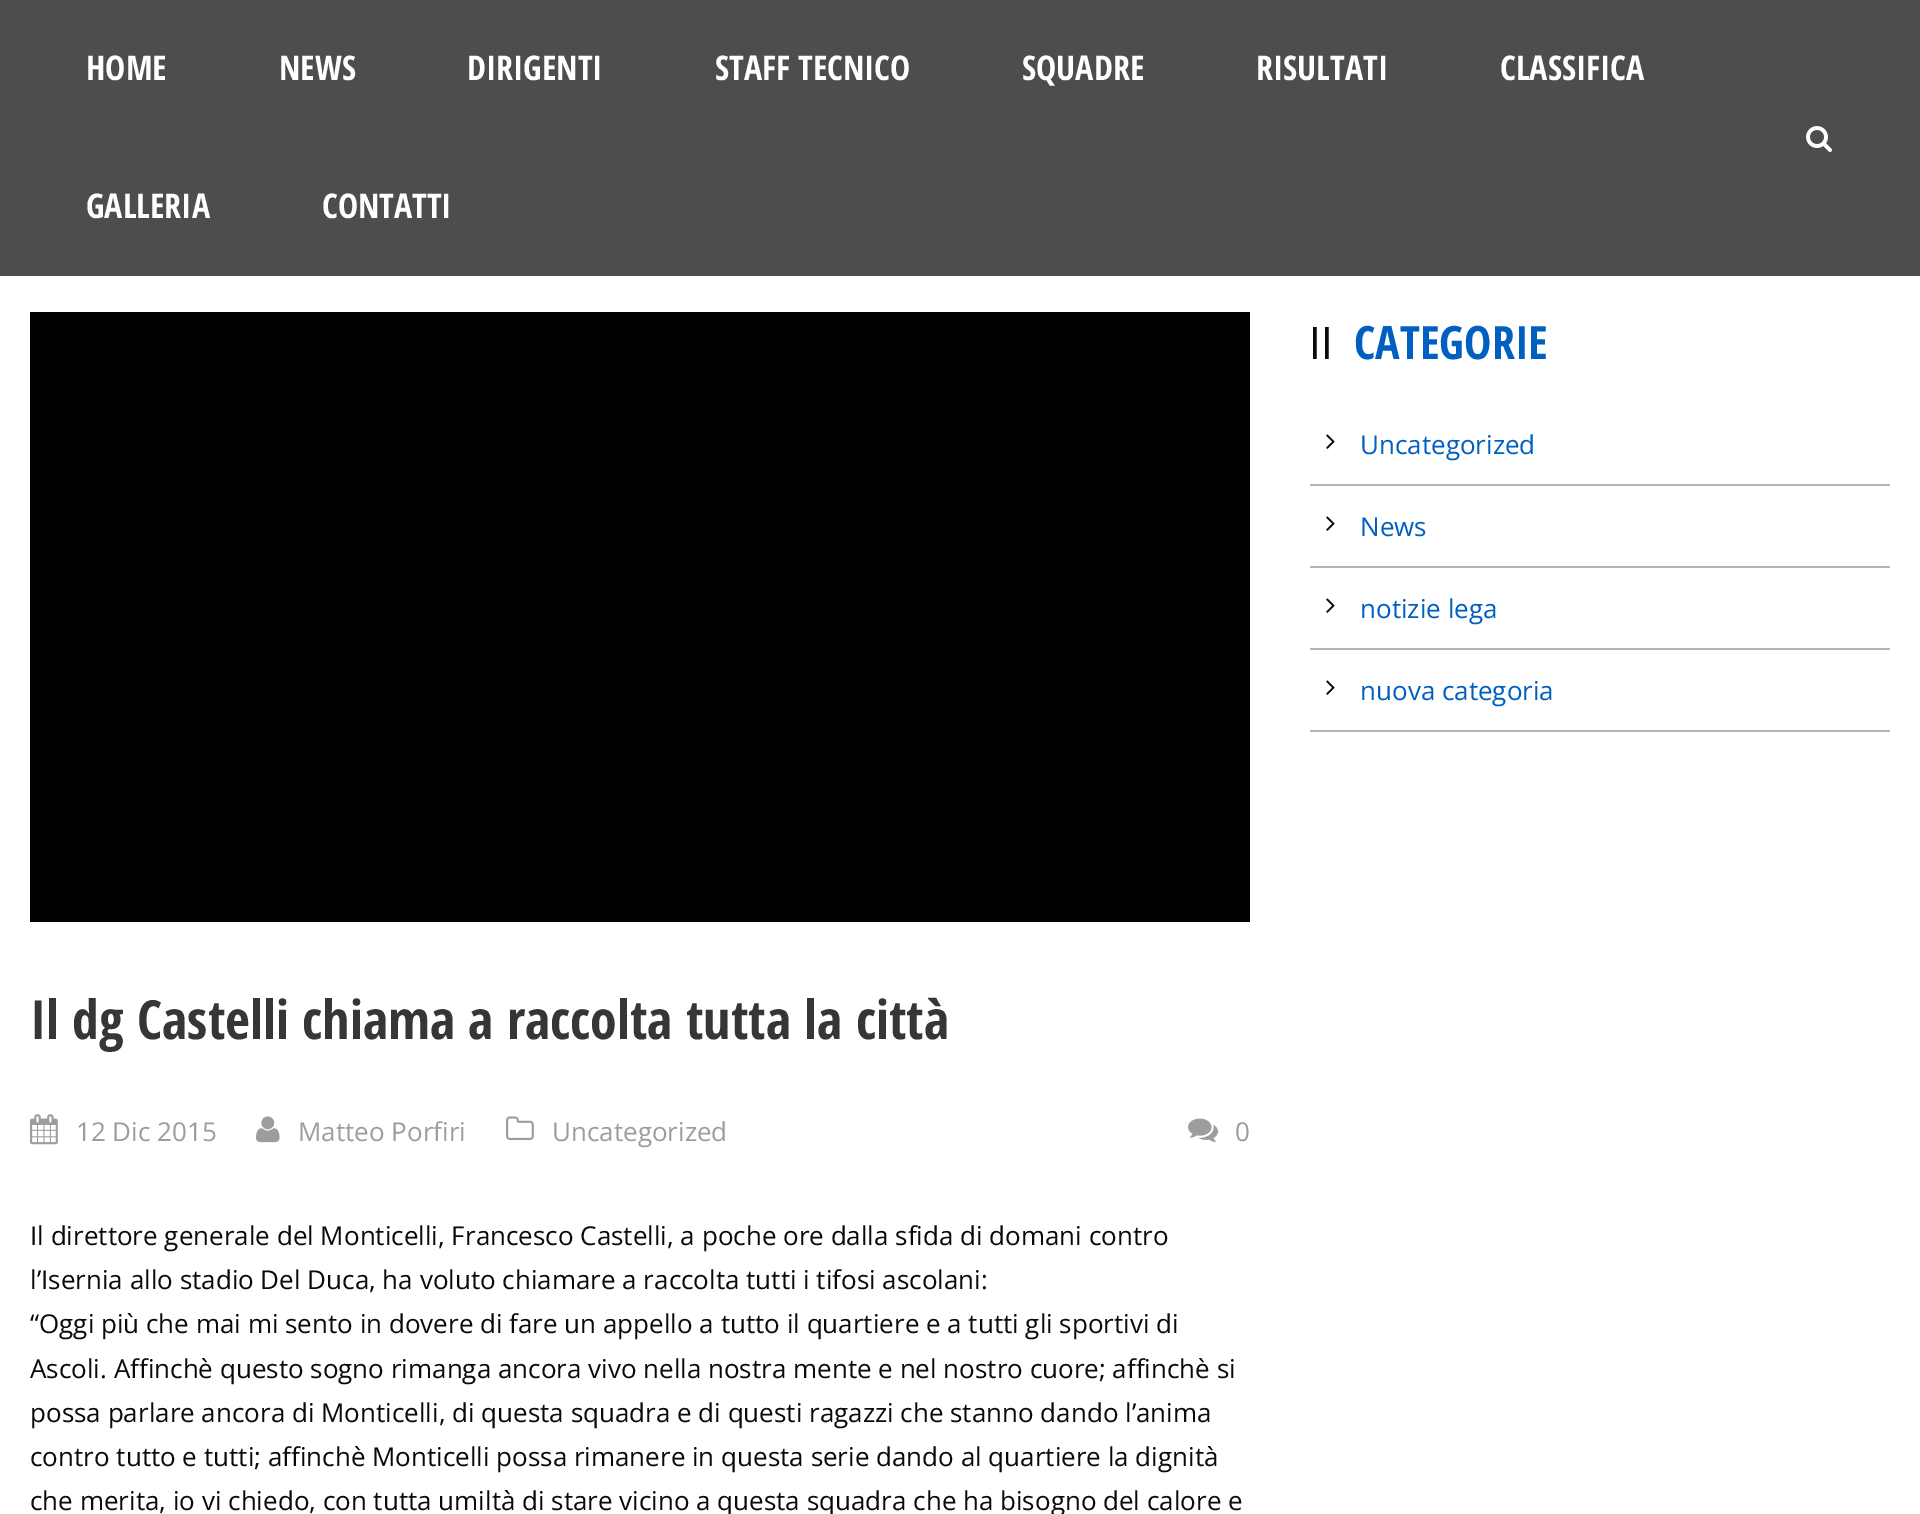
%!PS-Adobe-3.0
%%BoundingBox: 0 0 1920 1514
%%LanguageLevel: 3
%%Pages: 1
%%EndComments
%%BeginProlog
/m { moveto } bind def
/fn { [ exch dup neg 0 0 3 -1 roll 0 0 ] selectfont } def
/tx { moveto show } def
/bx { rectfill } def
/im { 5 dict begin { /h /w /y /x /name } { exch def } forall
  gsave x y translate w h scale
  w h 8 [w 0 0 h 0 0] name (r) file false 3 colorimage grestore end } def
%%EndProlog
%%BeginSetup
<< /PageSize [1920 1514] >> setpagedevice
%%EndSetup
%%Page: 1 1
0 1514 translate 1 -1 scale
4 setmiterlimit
1 setgray
0 0 1920 1514 bx
0.302 setgray
0 0 1920 276 bx
/OpenSansCondensed-Bold 34 fn
1 setgray
(HOME) 86 80 tx
(NEWS) 279 80 tx
(DIRIGENTI) 467 80 tx
(STAFF TECNICO) 715 80 tx
(SQUADRE) 1022 80 tx
(RISULTATI) 1256 80 tx
(CLASSIFICA) 1500 80 tx
(GALLERIA) 86 218 tx
(CONTATTI) 322 218 tx
(image0.raw) 1806 126 26 26 im
/LiberationSans-Regular 44 fn
0.039 setgray
1310 359 m 2 0 (ll) ashow
/OpenSansCondensed-Bold 46 fn
0 0.373 0.749 setrgbcolor
(CATEGORIE) 1354 359 tx
0.698 setgray
1310 484 580 2 bx
(image1.raw) 1326 434 9 15 im
/OpenSans-Regular 26 fn
0 0.373 0.749 setrgbcolor
(Uncategorized) 1360 454 tx
0.698 setgray
1310 566 580 2 bx
(image1.raw) 1326 516 9 15 im
0 0.373 0.749 setrgbcolor
(News) 1360 536 tx
0.698 setgray
1310 648 580 2 bx
(image1.raw) 1326 598 9 15 im
0 0.373 0.749 setrgbcolor
(notizie lega) 1360 618 tx
0.698 setgray
1310 730 580 2 bx
(image1.raw) 1326 680 9 15 im
0 0.373 0.749 setrgbcolor
(nuova categoria) 1360 700 tx
0 setgray
30 312 1220 610 bx
/OpenSansCondensed-Bold 54 fn
0.212 setgray
(Il dg Castelli chiama a raccolta tutta la città) 30 1039 tx
(image2.raw) 30 1114 28 31 im
/OpenSans-Regular 26 fn
0.62 0.616 0.612 setrgbcolor
(12 Dic 2015) 76 1141 tx
(image3.raw) 256 1116 24 27 im
(Matteo Porfiri) 298 1141 tx
(image4.raw) 506 1116 28 24 im
(Uncategorized) 552 1141 tx
(image5.raw) 1188 1118 30 25 im
(0) 1235 1141 tx
0.039 setgray
(Il direttore generale del Monticelli, Francesco Castelli, a poche ore dalla sfida di domani contro) 30 1245 tx
(l’Isernia allo stadio Del Duca, ha voluto chiamare a raccolta tutti i tifosi ascolani:) 30 1289 tx
(“Oggi più che mai mi sento in dovere di fare un appello a tutto il quartiere e a tutti gli sportivi di) 30 1333 tx
(Ascoli. Affinchè questo sogno rimanga ancora vivo nella nostra mente e nel nostro cuore; affinchè si) 30 1378 tx
(possa parlare ancora di Monticelli, di questa squadra e di questi ragazzi che stanno dando l’anima) 30 1422 tx
(contro tutto e tutti; affinchè Monticelli possa rimanere in questa serie dando al quartiere la dignità) 30 1466 tx
(che merita, io vi chiedo, con tutta umiltà di stare vicino a questa squadra che ha bisogno del calore e) 30 1510 tx
showpage
%%EOF
